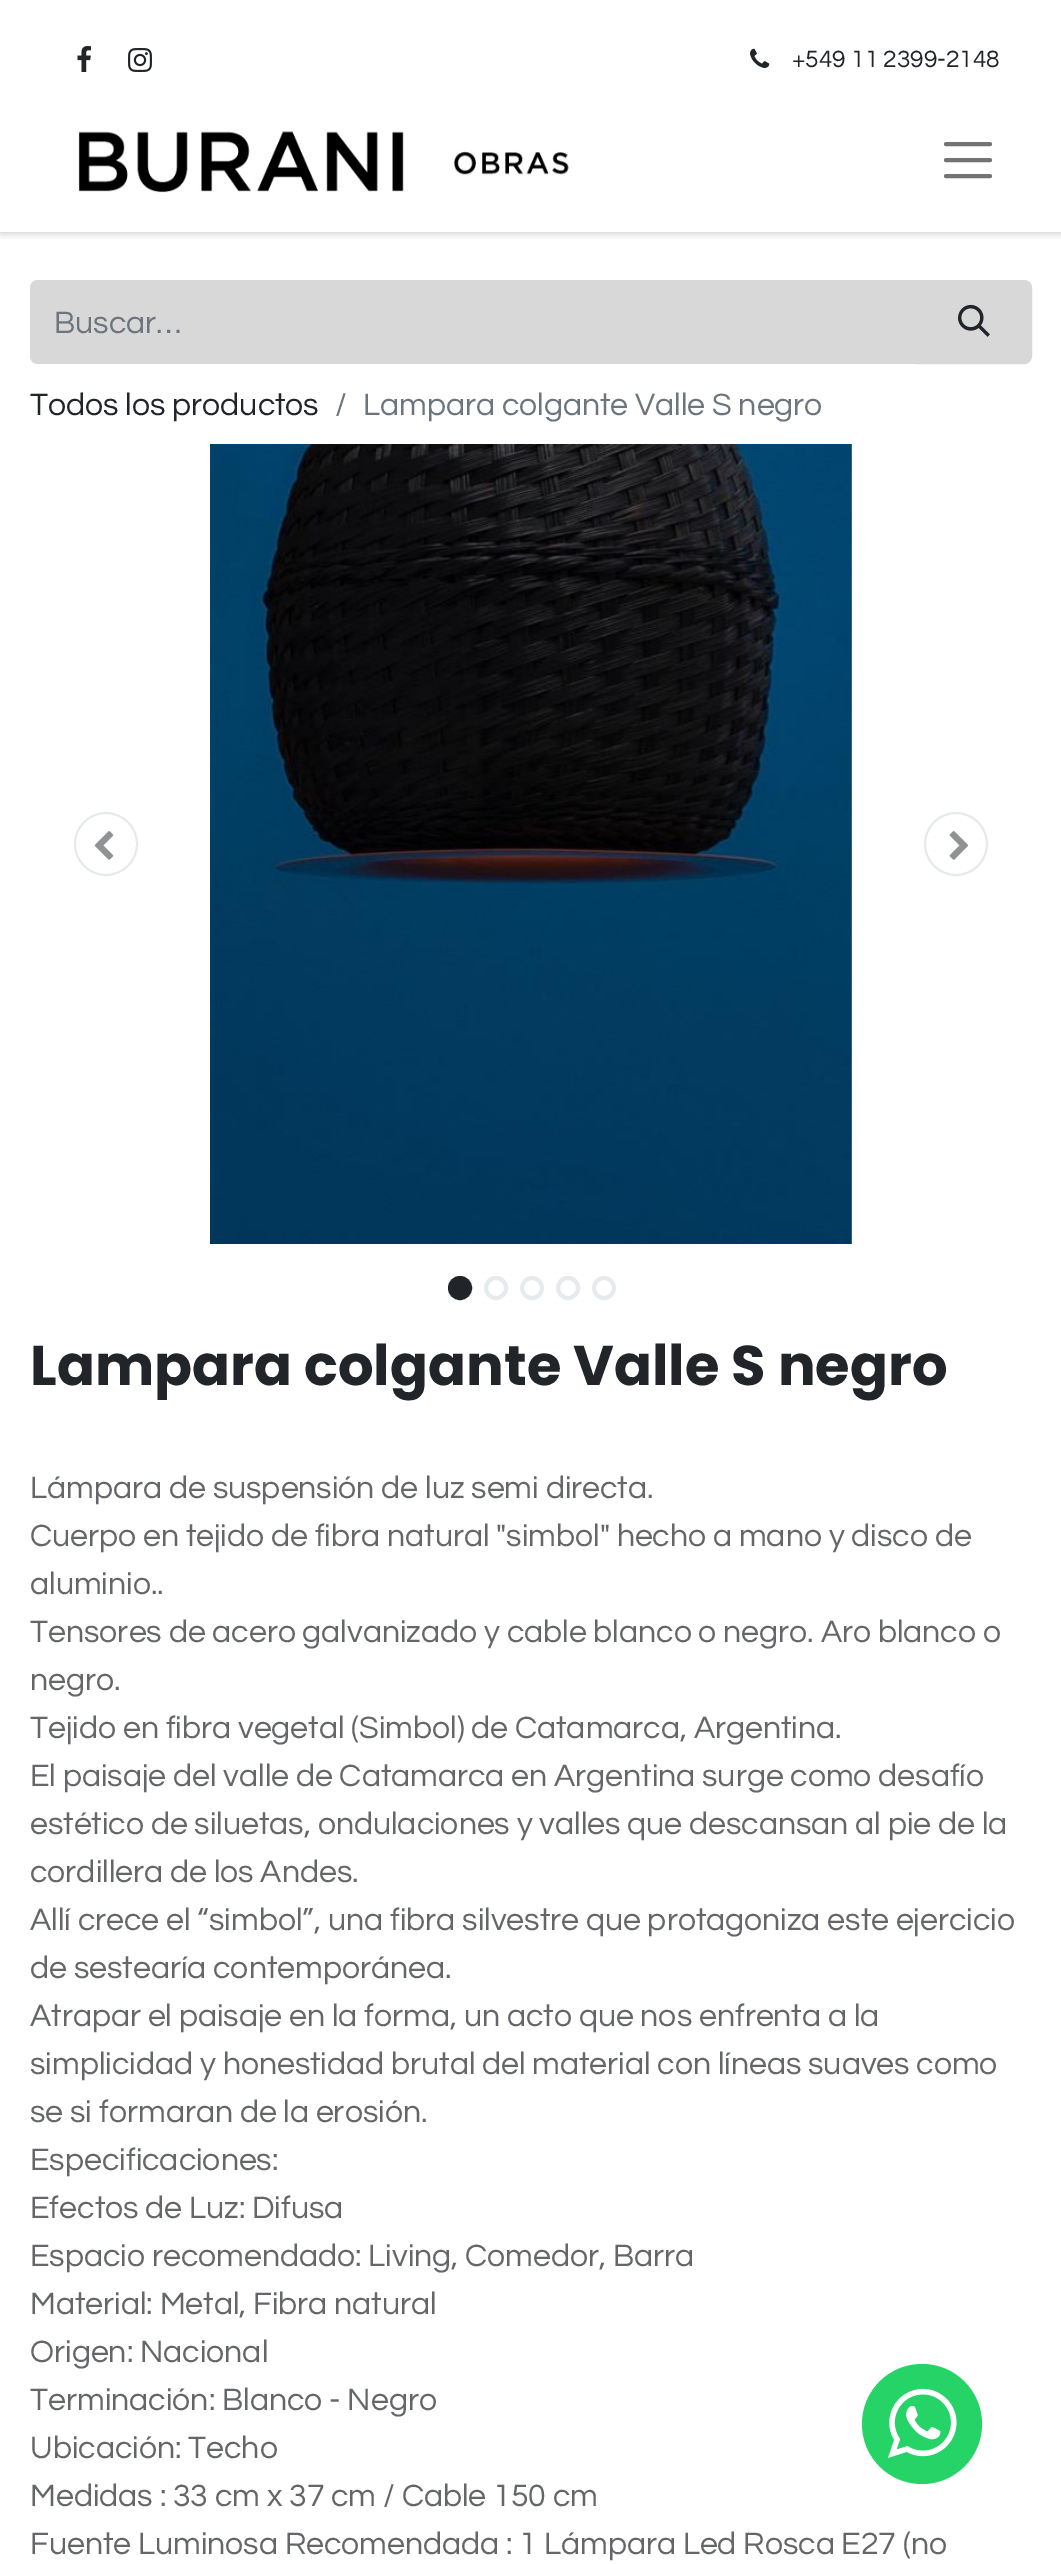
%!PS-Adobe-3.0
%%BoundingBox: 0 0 1061 2564
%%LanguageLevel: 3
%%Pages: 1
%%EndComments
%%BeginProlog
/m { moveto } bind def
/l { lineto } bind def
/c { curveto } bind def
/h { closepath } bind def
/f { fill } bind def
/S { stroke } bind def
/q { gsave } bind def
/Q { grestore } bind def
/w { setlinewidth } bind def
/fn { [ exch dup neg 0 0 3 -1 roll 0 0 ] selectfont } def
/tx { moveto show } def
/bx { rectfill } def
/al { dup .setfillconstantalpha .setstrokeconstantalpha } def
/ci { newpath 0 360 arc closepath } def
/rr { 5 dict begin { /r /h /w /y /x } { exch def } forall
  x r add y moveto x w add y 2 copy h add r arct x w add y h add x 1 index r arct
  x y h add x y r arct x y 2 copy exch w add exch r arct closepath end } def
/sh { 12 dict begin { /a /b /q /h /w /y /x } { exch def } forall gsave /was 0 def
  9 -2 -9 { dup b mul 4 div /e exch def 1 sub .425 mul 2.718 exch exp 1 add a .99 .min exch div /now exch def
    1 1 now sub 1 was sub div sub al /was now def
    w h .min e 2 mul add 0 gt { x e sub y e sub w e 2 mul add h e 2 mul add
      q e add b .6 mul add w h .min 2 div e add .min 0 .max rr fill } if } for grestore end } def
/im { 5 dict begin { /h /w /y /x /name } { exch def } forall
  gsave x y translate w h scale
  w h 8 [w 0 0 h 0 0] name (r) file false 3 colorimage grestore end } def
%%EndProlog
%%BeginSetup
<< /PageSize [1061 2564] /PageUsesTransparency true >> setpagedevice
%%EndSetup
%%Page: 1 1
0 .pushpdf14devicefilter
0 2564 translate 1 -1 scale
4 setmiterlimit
1 setgray
0 0 1061 2564 bx
q
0 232 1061 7 rectclip
0 setgray
0 0 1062 232 0 5 0.25 sh
Q
(image0.raw) 77 46 14 26 im
(image1.raw) 128 48 24 24 im
(image2.raw) 750 48 20 20 im
/Questrial-Regular 24.5 fn
0.129 0.145 0.161 setrgbcolor
(+549 11 2399-2148) 792 67 tx
(image3.raw) 78 131 491 62 im
0.451 setgray
4 w
1 setlinecap
946 144 m 990 144 l 946 160 m 990 160 l 946 176 m 990 176 l S
0.847 setgray
38 280 m 918 280 l 918 364 l 38 364 l 33.5 364 30 360.5 30 356 c 30 288 l 30 283.5 33.5 280 38 280 c h f
/Questrial-Regular 32 fn
0.424 0.459 0.49 setrgbcolor
(Buscar…) 54 333 tx
0.847 setgray
917 281 m 1024 281 l 1028 281 1031 284 1031 288 c 1031 356 l 1031 360 1028 363 1024 363 c 917 363 l h q f Q
2 w
0 setlinecap
S
(image4.raw) 958 304 32 33 im
0.129 0.145 0.161 setrgbcolor
(Todos los productos) 30 415 tx
0.424 0.459 0.49 setrgbcolor
(/) 335 415 tx
(Lampara colgante Valle S negro) 363 415 tx
0.906 0.918 0.929 setrgbcolor
106 844 31 ci S
(image5.raw) 94 831 20 29 im
(image6.raw) 210 444 642 800 im
956 844 31 ci S
(image7.raw) 949 831 20 29 im
0.129 0.145 0.161 setrgbcolor
460 1288 10 ci q f Q
4 w
S
0.906 0.918 0.929 setrgbcolor
496 1288 10 ci S
532 1288 10 ci S
568 1288 10 ci S
604 1288 10 ci S
/Poppins-Bold 56 fn
0.129 0.145 0.161 setrgbcolor
(Lampara colgante Valle S negro) 30 1385 tx
/Questrial-Regular 32 fn
0.392 0.4 0.412 setrgbcolor
(Lámpara de suspensión de luz semi directa.) 30 1498 tx
(Cuerpo en tejido de fibra natural "simbol" hecho a mano y disco de) 30 1546 tx
(aluminio..) 30 1594 tx
(Tensores de acero galvanizado y cable blanco o negro. Aro blanco o) 30 1642 tx
(negro.) 30 1690 tx
(Tejido en fibra vegetal \(Simbol\) de Catamarca, Argentina.) 30 1738 tx
(El paisaje del valle de Catamarca en Argentina surge como desafío) 30 1786 tx
(estético de siluetas, ondulaciones y valles que descansan al pie de la) 30 1834 tx
(cordillera de los Andes.) 30 1882 tx
(Allí crece el “simbol”, una fibra silvestre que protagoniza este ejercicio) 30 1930 tx
(de sestearía contemporánea.) 30 1978 tx
(Atrapar el paisaje en la forma, un acto que nos enfrenta a la) 30 2026 tx
(simplicidad y honestidad brutal del material con líneas suaves como) 30 2074 tx
(se si formaran de la erosión.) 30 2122 tx
(Especificaciones:) 30 2170 tx
(Efectos de Luz: Difusa) 30 2218 tx
(Espacio recomendado: Living, Comedor, Barra) 30 2266 tx
(Material: Metal, Fibra natural) 30 2314 tx
(Origen: Nacional) 30 2362 tx
(Terminación: Blanco - Negro) 30 2410 tx
(Ubicación: Techo) 30 2458 tx
(Medidas : 33 cm x 37 cm / Cable 150 cm) 30 2506 tx
(Fuente Luminosa Recomendada : 1 Lámpara Led Rosca E27 \(no) 30 2554 tx
0.145 0.827 0.4 setrgbcolor
922 2424 60 ci f
(image8.raw) 888 2388 69 70 im
.poppdf14devicefilter showpage
%%EOF
